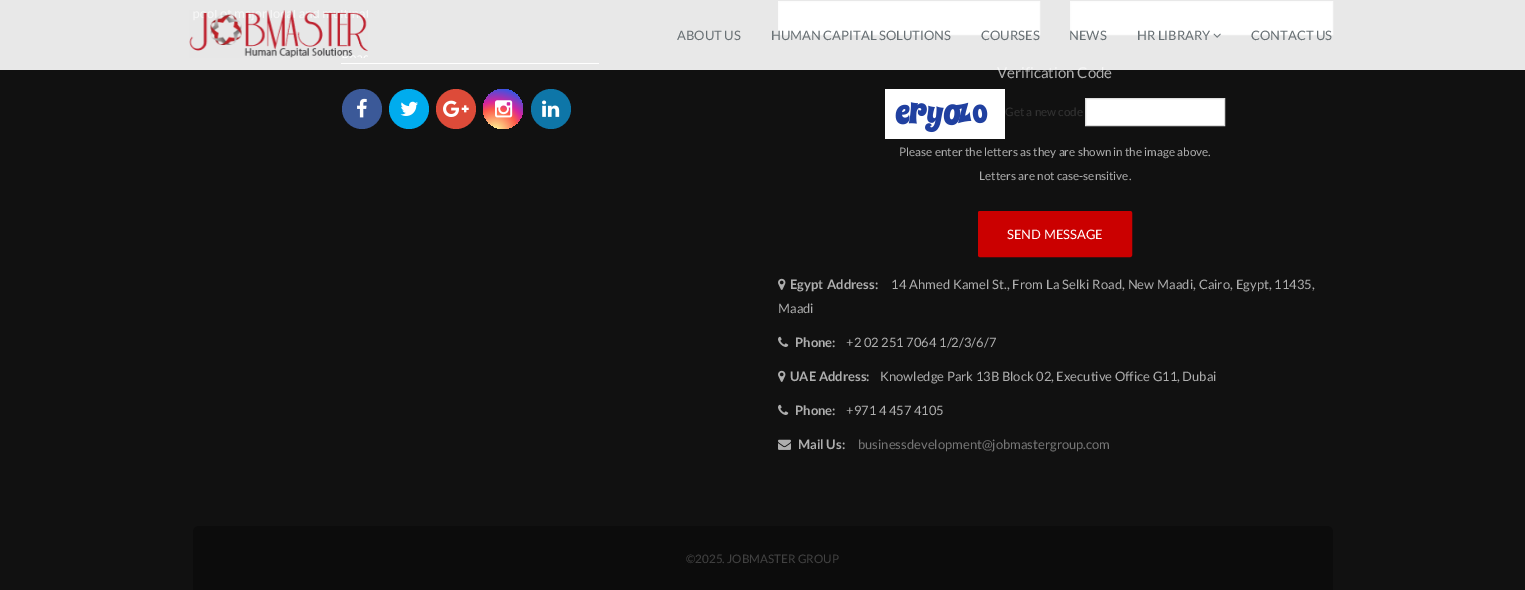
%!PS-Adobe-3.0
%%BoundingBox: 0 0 1525 590
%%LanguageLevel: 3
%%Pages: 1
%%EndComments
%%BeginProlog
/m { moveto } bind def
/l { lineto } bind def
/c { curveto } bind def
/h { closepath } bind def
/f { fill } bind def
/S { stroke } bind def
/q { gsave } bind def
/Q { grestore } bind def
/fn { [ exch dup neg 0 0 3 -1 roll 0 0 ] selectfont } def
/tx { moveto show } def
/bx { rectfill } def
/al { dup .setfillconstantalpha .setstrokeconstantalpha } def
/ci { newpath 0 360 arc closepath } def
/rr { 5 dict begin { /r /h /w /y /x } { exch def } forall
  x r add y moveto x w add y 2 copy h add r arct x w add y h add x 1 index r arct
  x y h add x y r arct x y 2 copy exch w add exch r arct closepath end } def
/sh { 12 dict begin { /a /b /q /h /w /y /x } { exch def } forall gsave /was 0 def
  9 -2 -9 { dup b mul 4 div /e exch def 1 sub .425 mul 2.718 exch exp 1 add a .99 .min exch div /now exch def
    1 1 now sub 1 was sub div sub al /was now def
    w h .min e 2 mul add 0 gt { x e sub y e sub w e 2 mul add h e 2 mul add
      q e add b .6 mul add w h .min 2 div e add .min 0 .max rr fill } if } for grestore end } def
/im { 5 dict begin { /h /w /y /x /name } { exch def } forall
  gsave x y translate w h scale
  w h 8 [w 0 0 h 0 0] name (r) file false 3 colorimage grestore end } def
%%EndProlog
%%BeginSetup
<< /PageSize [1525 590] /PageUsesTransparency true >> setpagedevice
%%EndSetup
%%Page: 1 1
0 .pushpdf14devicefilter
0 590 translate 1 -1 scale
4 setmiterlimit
0.067 setgray
0 0 1525 590 bx
1 setgray
341 63 258 1 bx
778.5 1.5 m 1039.5 1.5 l 1039.5 34.5 l 778.5 34.5 l h q f Q
0.867 setgray
S
1 setgray
1070.5 1.5 m 1332.5 1.5 l 1332.5 34.5 l 1070.5 34.5 l h q f Q
0.867 setgray
S
q
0 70 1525 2 rectclip
0 setgray
0 1 1525 70 0 1.5 0.12 sh
Q
/Lato-Regular 15 fn
0.682 setgray
(Verification Code) 997 78 tx
0.9 al
1 setgray
0 0 1525 70 bx
1 al
(image0.raw) 189 10 179 48 im
/Lato-Regular 13 fn
0.408 0.439 0.455 setrgbcolor
(ABOUT US) 677 40 tx
(HUMAN CAPITAL SOLUTIONS) 771 40 tx
(COURSES) 981 40 tx
(NEWS) 1069 40 tx
(HR LIBRARY) 1137 40 tx
(image1.raw) 1213 33 8 5 im
(CONTACT US) 1251 40 tx
0.231 0.349 0.596 setrgbcolor
362 109 20 ci f
(image2.raw) 357 98 10 20 im
0 0.675 0.933 setrgbcolor
409 109 20 ci f
(image3.raw) 400 101 18 15 im
0.867 0.294 0.224 setrgbcolor
456 109 20 ci f
(image4.raw) 443 100 26 17 im
q 503 109 20 ci clip newpath 495 132 translate 51 51 scale
<< /ShadingType 3 /ColorSpace /DeviceRGB /Coords [0 0 0 0 0 1] /Extend [true true] /Function << /FunctionType 3 /Domain [0 1] /Functions [<< /FunctionType 2 /Domain [0 1] /C0 [0.992 0.957 0.592] /C1 [0.992 0.957 0.592] /N 1 >> << /FunctionType 2 /Domain [0 1] /C0 [0.992 0.957 0.592] /C1 [0.992 0.349 0.286] /N 1 >> << /FunctionType 2 /Domain [0 1] /C0 [0.992 0.349 0.286] /C1 [0.839 0.141 0.624] /N 1 >> << /FunctionType 2 /Domain [0 1] /C0 [0.839 0.141 0.624] /C1 [0.157 0.353 0.922] /N 1 >> << /FunctionType 2 /Domain [0 1] /C0 [0.157 0.353 0.922] /C1 [0.157 0.353 0.922] /N 1 >>] /Bounds [0.05 0.45 0.6 0.9] /Encode [0 1 0 1 0 1 0 1 0 1] >> >> shfill Q
(image5.raw) 495 100 18 18 im
0.055 0.463 0.659 setrgbcolor
551 109 20 ci f
(image6.raw) 542 100 18 17 im
(image7.raw) 885 89 120 50 im
/Lato-Regular 11.7 fn
0.2 setgray
(Get a new code) 1005 116 tx
1 setgray
1085.5 98.5 m 1224.5 98.5 l 1224.5 125.5 l 1085.5 125.5 l h q f Q
0.867 setgray
S
0.682 setgray
(Please enter the letters as they are shown in the image above.) 899 156 tx
(Letters are not case-sensitive.) 979 180 tx
0.796 0 0 setrgbcolor
978.5 211.5 153 45 1.5 rr q f Q
S
/Lato-Regular 13 fn
1 setgray
(SEND MESSAGE) 1007 239 tx
(image8.raw) 778 278 8 12 im
/Lato-Bold 13 fn
0.682 setgray
790 289 m 1 0 32 (Egypt Address:) widthshow
/Lato-Regular 13 fn
891 289 m 0.5 0 32 (14 Ahmed Kamel St., From La Selki Road, New Maadi, Cairo, Egypt, 11435,) widthshow
(Maadi) 778 313 tx
(image9.raw) 778 336 11 11 im
/Lato-Bold 13 fn
(Phone:) 795 347 tx
/Lato-Regular 13 fn
(+2 02 251 7064 1/2/3/6/7) 846 347 tx
(image8.raw) 778 370 8 12 im
/Lato-Bold 13 fn
(UAE Address:) 790 381 tx
/Lato-Regular 13 fn
(Knowledge Park 13B Block 02, Executive Office G11, Dubai) 880 381 tx
(image9.raw) 778 404 11 11 im
/Lato-Bold 13 fn
(Phone:) 795 415 tx
/Lato-Regular 13 fn
(+971 4 457 4105) 846 415 tx
(image10.raw) 778 439 13 11 im
/Lato-Bold 13 fn
(Mail Us:) 798 449 tx
/Lato-Regular 13 fn
0.467 setgray
(businessdevelopment@jobmastergroup.com) 858 449 tx
0.047 setgray
199 526 m 1327 526 l 1330.5 526 1333 528.5 1333 532 c 1333 590 l 193 590 l 193 532 l 193 528.5 195.5 526 199 526 c h f
/Lato-Regular 11.7 fn
0.259 setgray
(©2025. JOBMASTER GROUP) 686 563 tx
.poppdf14devicefilter showpage
%%EOF
